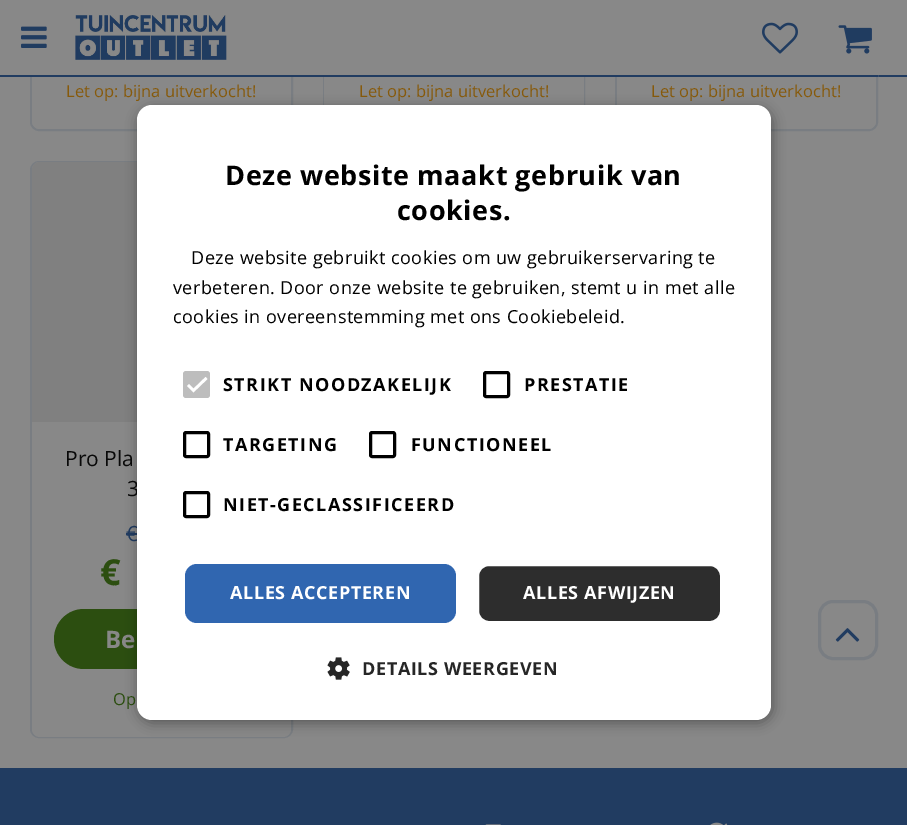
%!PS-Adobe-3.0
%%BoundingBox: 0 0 907 825
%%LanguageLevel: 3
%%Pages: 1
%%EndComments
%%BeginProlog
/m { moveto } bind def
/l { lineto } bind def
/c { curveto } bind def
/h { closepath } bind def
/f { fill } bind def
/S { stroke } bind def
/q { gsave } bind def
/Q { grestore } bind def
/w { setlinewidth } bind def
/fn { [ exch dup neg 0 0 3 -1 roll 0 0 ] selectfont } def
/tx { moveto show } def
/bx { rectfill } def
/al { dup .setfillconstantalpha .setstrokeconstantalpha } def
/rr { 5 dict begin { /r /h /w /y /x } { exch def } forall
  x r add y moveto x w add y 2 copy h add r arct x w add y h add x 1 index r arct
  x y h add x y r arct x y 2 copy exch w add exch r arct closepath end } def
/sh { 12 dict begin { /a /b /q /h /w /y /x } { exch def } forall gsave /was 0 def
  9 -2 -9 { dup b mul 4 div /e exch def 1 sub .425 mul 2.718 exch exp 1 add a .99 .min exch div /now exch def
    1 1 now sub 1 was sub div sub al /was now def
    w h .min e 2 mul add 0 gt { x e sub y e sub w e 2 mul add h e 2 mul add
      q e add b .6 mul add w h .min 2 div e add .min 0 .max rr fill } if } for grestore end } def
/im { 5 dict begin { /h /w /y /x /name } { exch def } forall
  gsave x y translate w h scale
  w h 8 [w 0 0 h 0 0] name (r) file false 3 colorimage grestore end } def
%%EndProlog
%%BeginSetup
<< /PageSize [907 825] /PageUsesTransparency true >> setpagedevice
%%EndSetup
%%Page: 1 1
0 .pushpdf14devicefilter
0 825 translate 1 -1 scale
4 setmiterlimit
0.129 0.235 0.38 setrgbcolor
0 0 907 825 bx
0.533 setgray
0 77 907 691 bx
0.475 0.49 0.51 setrgbcolor
2 w
31 -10 261 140 8 rr S
0.533 setgray
32 -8 259 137 8 rr f
0.475 0.49 0.51 setrgbcolor
324 -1 260 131 rectstroke
616 -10 261 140 8 rr S
0.533 setgray
617 -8 259 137 8 rr f
0 0 907 75 bx
(image0.raw) 21 26 26 22 im
0.129 0.235 0.38 setrgbcolor
30 75 848 2 bx
(image1.raw) 75 15 152 45 im
(image2.raw) 762 22 36 32 im
(image3.raw) 838 25 34 29 im
/OpenSans-Regular 16.5 fn
0.529 0.353 0.043 setrgbcolor
(Let op: bijna uitverkocht!) 66 97 tx
0.533 setgray
324 77 260 28 bx
0.529 0.353 0.043 setrgbcolor
(Let op: bijna uitverkocht!) 359 97 tx
(Let op: bijna uitverkocht!) 651 97 tx
0.475 0.49 0.51 setrgbcolor
31 162 261 575 8 rr S
0.533 setgray
32 162 259 575 8 rr f
0.502 setgray
40 162 m 283 162 l 287.5 162 291 165.5 291 170 c 291 422 l 32 422 l 32 170 l 32 165.5 35.5 162 40 162 c h f
/OpenSans-Regular 21 fn
0.035 setgray
(Pro Pla) 65 466 tx
(3) 127 496 tx
0.129 0.235 0.38 setrgbcolor
(€) 126 541 tx
126 533 12 2 bx
/OpenSans-Bold 36 fn
0.173 0.306 0.063 setrgbcolor
(€) 100 585 tx
54 609 215 60 30 rr f
/OpenSans-Bold 24 fn
0.533 setgray
(Be) 105 648 tx
/OpenSans-Regular 16.5 fn
0.173 0.306 0.063 setrgbcolor
(Op) 113 705 tx
0.475 0.49 0.51 setrgbcolor
3 w
819.5 601.5 57 57 13.5 rr S
(image4.raw) 835 628 25 14 im
(image5.raw) 485 824 16 1 im
(image6.raw) 710 822 18 3 im
0 setgray
138 108 635 615 15 6 0.35 sh
1 setgray
137 105 634 615 15 rr f
/OpenSans-Bold 27 fn
0 setgray
225 185 m 0.6 0 (Deze website maakt gebruik van) ashow
397 220 m 0.6 0 (cookies.) ashow
/OpenSans-Regular 18 fn
191 264 m 0.45 0 (Deze website gebruikt cookies om uw gebruikerservaring te) ashow
173 294 m 0.45 0 (verbeteren. Door onze website te gebruiken, stemt u in met alle) ashow
173 323 m 0.45 0 (cookies in overeenstemming met ons Cookiebeleid.) ashow
0.741 setgray
183 371 27 27 3 rr f
1 setgray
2.7 w
188 385 m 193.5 390.5 l 206.5 378 l S
/OpenSans-Bold 18 fn
0 setgray
223 391 m 1.5 0 (STRIKT NOODZAKELIJK) ashow
3 w
484.5 372.5 24 24 1.5 rr S
524 391 m 1.5 0 (PRESTATIE) ashow
184.5 432.5 24 24 1.5 rr S
223 451 m 1.5 0 (TARGETING) ashow
370.5 432.5 24 24 1.5 rr S
411 451 m 1.5 0 (FUNCTIONEEL) ashow
184.5 492.5 24 24 1.5 rr S
223 511 m 1.5 0 (NIET-GECLASSIFICEERD) ashow
0.188 0.4 0.69 setrgbcolor
185 564 271 59 12 rr f
1 setgray
230 599 m 0.6 0 (ALLES ACCEPTEREN) ashow
0.176 setgray
478 565 243 57 11 rr q f Q
1 setgray
2 w
S
523 599 m 0.6 0 (ALLES AFWIJZEN) ashow
(image7.raw) 327 657 23 23 im
0.149 setgray
362 675 m 0.6 0 (DETAILS WEERGEVEN) ashow
.poppdf14devicefilter showpage
%%EOF
